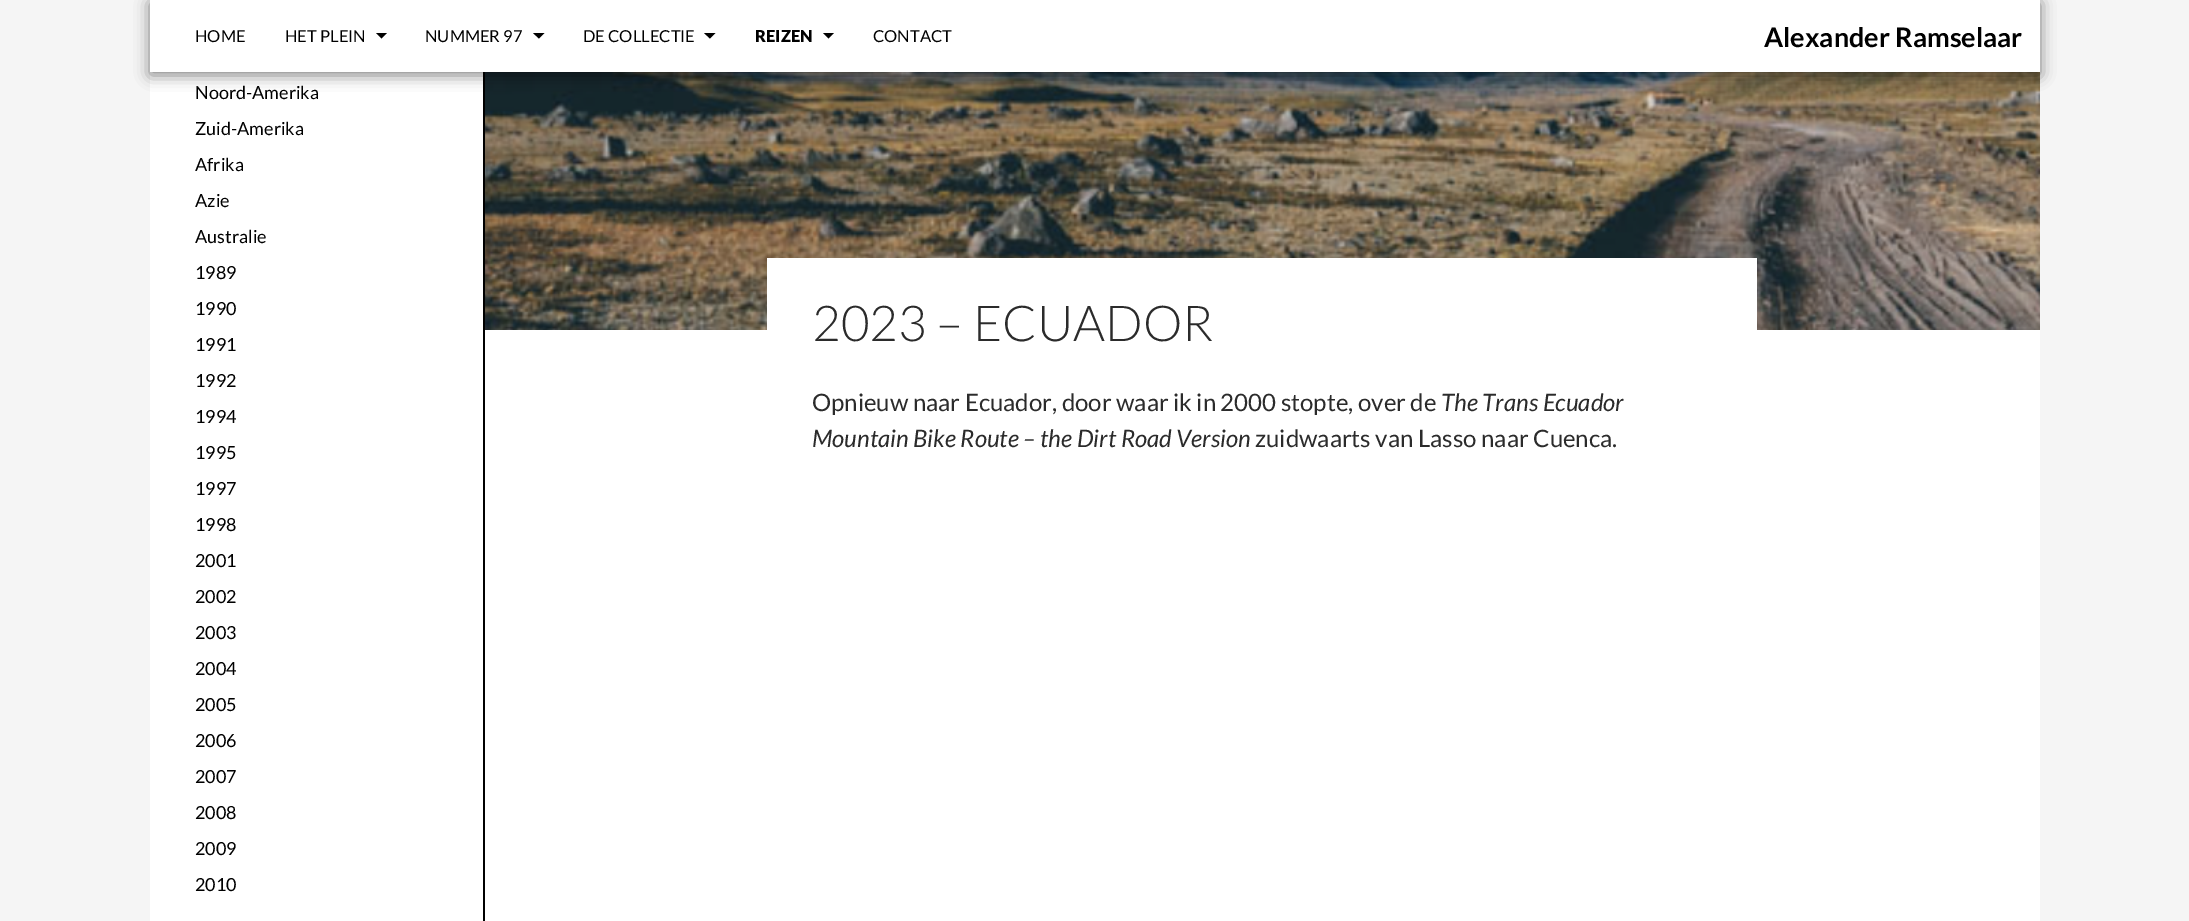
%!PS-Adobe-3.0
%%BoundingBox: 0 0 2189 921
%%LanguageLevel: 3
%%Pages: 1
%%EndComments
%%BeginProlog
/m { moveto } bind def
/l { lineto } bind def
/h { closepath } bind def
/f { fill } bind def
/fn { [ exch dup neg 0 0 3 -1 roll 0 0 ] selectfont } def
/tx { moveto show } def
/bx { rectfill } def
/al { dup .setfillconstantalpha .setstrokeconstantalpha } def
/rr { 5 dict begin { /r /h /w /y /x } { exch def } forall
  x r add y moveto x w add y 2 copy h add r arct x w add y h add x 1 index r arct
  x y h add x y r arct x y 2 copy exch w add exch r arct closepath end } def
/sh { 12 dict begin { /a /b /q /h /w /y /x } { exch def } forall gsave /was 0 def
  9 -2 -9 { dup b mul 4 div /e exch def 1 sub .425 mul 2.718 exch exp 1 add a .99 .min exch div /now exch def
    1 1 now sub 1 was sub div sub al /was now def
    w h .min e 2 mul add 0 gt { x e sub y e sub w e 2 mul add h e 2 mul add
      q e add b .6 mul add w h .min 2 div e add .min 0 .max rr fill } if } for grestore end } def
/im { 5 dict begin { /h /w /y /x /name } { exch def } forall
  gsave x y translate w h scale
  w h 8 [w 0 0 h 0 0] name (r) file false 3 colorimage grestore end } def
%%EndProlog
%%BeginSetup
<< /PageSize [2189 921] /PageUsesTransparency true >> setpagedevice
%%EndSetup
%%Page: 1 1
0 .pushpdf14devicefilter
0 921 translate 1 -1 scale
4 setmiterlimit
0.961 setgray
0 0 2189 921 bx
1 setgray
485 330 1555 591 bx
150 72 333 849 bx
0 setgray
483 72 2 849 bx
(image0.raw) 485 72 1555 258 im
150 3 1890 72 0 7.5 0.5 sh
1 setgray
150 0 1890 72 bx
/Lato-Regular 16.5 fn
0 setgray
(HOME) 195 42 tx
(HET PLEIN) 285 42 tx
376 33 m 381.5 38.5 l 387 33 l h f
(NUMMER 97) 425 42 tx
533 33 m 539 38.5 l 544.5 33 l h f
(DE COLLECTIE) 583 42 tx
704 33 m 710 38.5 l 715.5 33 l h f
/Lato-Black 16.5 fn
(REIZEN) 755 42 tx
823 33 m 828.5 38.5 l 834 33 l h f
/Lato-Regular 16.5 fn
(CONTACT) 873 42 tx
/Lato-Bold 27 fn
(Alexander Ramselaar) 1764 47 tx
/Lato-Regular 18 fn
(Noord-Amerika) 195 99 tx
(Zuid-Amerika) 195 135 tx
(Afrika) 195 171 tx
(Azie) 195 207 tx
(Australie) 195 243 tx
(1989) 195 279 tx
(1990) 195 315 tx
(1991) 195 351 tx
(1992) 195 387 tx
(1994) 195 423 tx
(1995) 195 459 tx
(1997) 195 495 tx
(1998) 195 531 tx
(2001) 195 567 tx
(2002) 195 603 tx
(2003) 195 639 tx
(2004) 195 675 tx
(2005) 195 711 tx
(2006) 195 747 tx
(2007) 195 783 tx
(2008) 195 819 tx
(2009) 195 855 tx
(2010) 195 891 tx
1 setgray
767 258 990 72 bx
/Lato-Light 49.5 fn
0.169 setgray
(2023 – ECUADOR) 812 341 tx
/Lato-Regular 24 fn
(Opnieuw naar Ecuador, door waar ik in 2000 stopte, over de) 812 411 tx
/Lato-Italic 24 fn
(The Trans Ecuador) 1441 411 tx
(Mountain Bike Route – the Dirt Road Version) 812 447 tx
/Lato-Regular 24 fn
(zuidwaarts van Lasso naar Cuenca.) 1255 447 tx
.poppdf14devicefilter showpage
%%EOF
